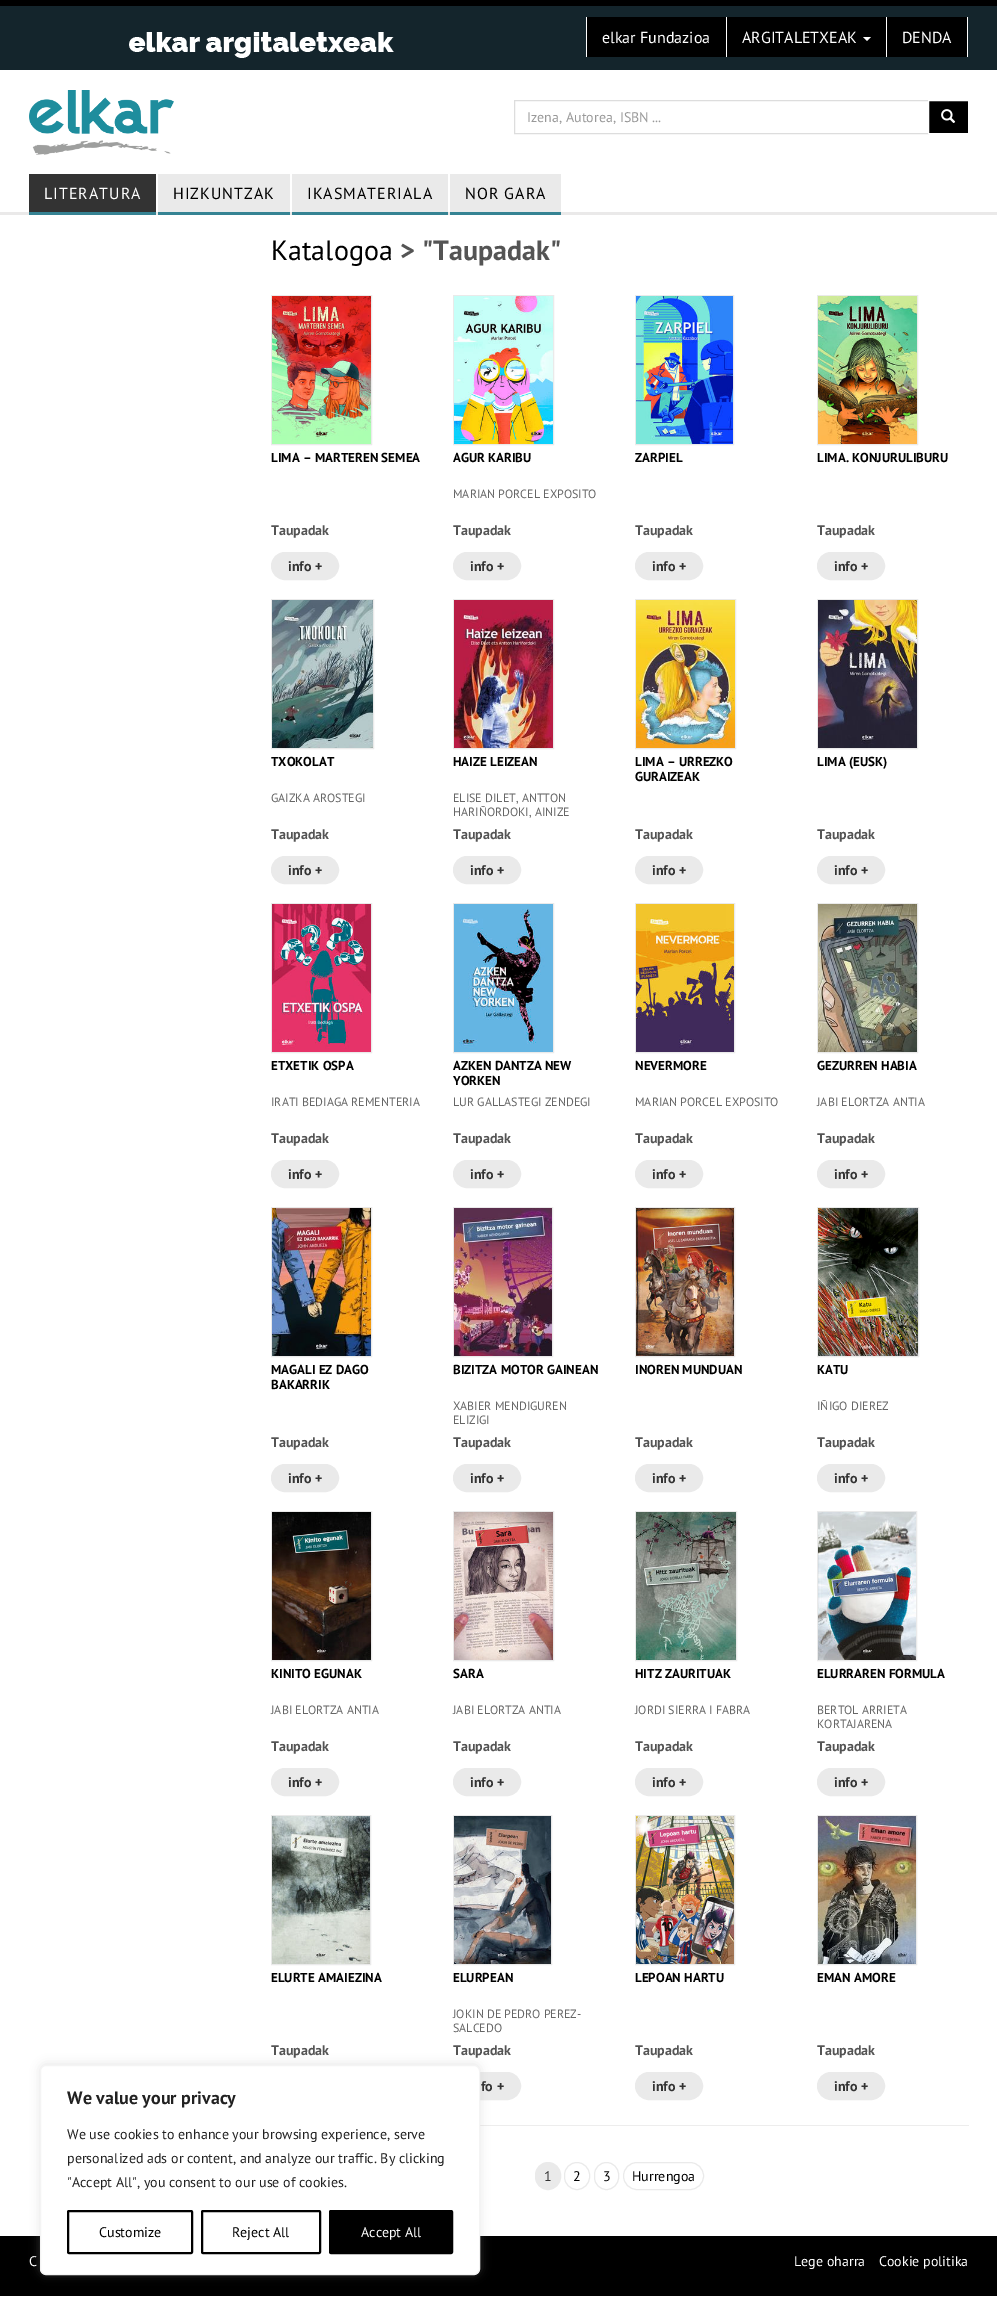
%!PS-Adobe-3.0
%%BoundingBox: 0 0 997 2315
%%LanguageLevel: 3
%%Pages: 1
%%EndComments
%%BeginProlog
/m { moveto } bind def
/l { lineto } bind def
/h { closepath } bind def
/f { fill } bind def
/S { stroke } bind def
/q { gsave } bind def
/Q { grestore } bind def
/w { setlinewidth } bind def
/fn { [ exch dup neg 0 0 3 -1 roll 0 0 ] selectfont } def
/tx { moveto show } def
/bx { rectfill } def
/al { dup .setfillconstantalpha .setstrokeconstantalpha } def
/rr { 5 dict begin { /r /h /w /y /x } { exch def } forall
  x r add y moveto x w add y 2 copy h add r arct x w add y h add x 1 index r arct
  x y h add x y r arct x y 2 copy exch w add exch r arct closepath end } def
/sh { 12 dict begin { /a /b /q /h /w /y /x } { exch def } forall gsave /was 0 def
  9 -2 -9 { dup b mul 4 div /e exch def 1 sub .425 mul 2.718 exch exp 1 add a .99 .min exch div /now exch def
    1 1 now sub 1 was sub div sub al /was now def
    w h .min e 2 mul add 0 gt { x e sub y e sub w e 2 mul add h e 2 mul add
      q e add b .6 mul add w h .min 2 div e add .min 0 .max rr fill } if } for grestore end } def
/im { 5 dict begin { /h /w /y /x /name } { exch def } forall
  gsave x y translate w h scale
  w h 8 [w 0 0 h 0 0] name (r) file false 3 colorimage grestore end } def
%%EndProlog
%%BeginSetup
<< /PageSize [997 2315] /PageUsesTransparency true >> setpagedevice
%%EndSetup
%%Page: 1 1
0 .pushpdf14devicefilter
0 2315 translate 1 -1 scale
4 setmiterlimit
1 setgray
0 0 997 2315 bx
0.078 0.145 0.173 setrgbcolor
0 6 997 64 bx
0 setgray
0 0 997 6 bx
(image0.raw) 129 32 265 26 im
1 setgray
726 17 1 40 bx
586 17 1 40 bx
0 setgray
587 17 139 40 bx
/PTSans-Regular 16 fn
1 setgray
(elkar Fundazioa) 602 43 tx
886 17 1 40 bx
0 setgray
727 17 159 40 bx
1 setgray
(ARGITALETXEAK) 742 43 tx
863 37 m 871 37 l 867 41 l h f
967 17 1 40 bx
0 setgray
887 17 80 40 bx
1 setgray
(DENDA) 902 43 tx
(image1.raw) 29 90 145 65 im
0.867 setgray
514.5 100.5 414 33 rectstroke
/PTSans-Regular 14 fn
0.6 setgray
(Izena, Autorea, ISBN ...) 527 122 tx
0 setgray
928.5 100.5 m 968.5 100.5 l 968.5 133.5 l 928.5 133.5 l h q f Q
1 setgray
S
(image2.raw) 941 109 15 14 im
0.918 0.914 0.914 setrgbcolor
0 212 997 3 bx
0.212 0.514 0.576 setrgbcolor
29 212 127 3 bx
0.2 setgray
29 174 127 38 bx
/PTSans-Regular 16 fn
1 setgray
44 199 m 1 0 (LITERATURA) ashow
0.212 0.514 0.576 setrgbcolor
158 212 132 3 bx
0.918 setgray
158 174 132 38 bx
0 setgray
173 199 m 1 0 (HIZKUNTZAK) ashow
0.212 0.514 0.576 setrgbcolor
292 212 156 3 bx
0.918 setgray
292 174 156 38 bx
0 setgray
307 199 m 1 0 (IKASMATERIALA) ashow
0.212 0.514 0.576 setrgbcolor
450 212 111 3 bx
0.918 setgray
450 174 111 38 bx
0 setgray
465 199 m 1 0 (NOR GARA) ashow
0.918 setgray
453.5 2072.5 67 27 13.5 rr q f Q
S
0.929 setgray
480 2125 489 1 bx
0 setgray
0 2236 997 60 bx
0.675 0.671 0.671 setrgbcolor
40 2064 440 210 6 5 0.3 sh
1 setgray
40.5 2065.5 439 209 5.5 rr q f Q
0.957 setgray
S
/PTSans-Bold 18 fn
0.129 setgray
(We value your privacy) 67 2104 tx
/PTSans-Regular 14 fn
(We use cookies to enhance your browsing experience, serve) 67 2139 tx
(personalized ads or content, and analyze our traffic. By clicking) 67 2163 tx
("Accept All", you consent to our use of cookies.) 67 2187 tx
0 setgray
2 w
68 2211 124 42 1 rr S
(Customize) 99 2237 tx
202 2211 118 42 1 rr S
(Reject All) 232 2237 tx
330 2211 122 42 1 rr q f Q
S
1 setgray
(Accept All) 361 2237 tx
/PTSans-Regular 28 fn
0 setgray
(Katalogoa) 271 260 tx
/PTSans-Bold 28 fn
0.329 setgray
(> "Taupadak") 400 260 tx
0.918 setgray
1 w
271.5 295.5 100 149 rectstroke
(image3.raw) 272 296 99 148 im
/PTSans-Bold 13 fn
0 setgray
(LIMA – MARTEREN SEMEA) 271 462 tx
/PTSans-Bold 14 fn
0.329 setgray
(Taupadak) 271 535 tx
0.918 setgray
271.5 552.5 67 27 13.5 rr q f Q
S
0.2 setgray
(info +) 288 571 tx
0.918 setgray
453.5 295.5 100 149 rectstroke
(image4.raw) 454 296 99 148 im
/PTSans-Bold 13 fn
0 setgray
(AGUR KARIBU) 453 462 tx
/PTSans-Regular 12 fn
0.4 setgray
(MARIAN PORCEL EXPOSITO) 453 498 tx
/PTSans-Bold 14 fn
0.329 setgray
(Taupadak) 453 535 tx
0.918 setgray
453.5 552.5 67 27 13.5 rr q f Q
S
0.2 setgray
(info +) 470 571 tx
0.918 setgray
635.5 295.5 98 149 rectstroke
(image5.raw) 636 296 97 148 im
/PTSans-Bold 13 fn
0 setgray
(ZARPIEL) 635 462 tx
/PTSans-Bold 14 fn
0.329 setgray
(Taupadak) 635 535 tx
0.918 setgray
635.5 552.5 67 27 13.5 rr q f Q
S
0.2 setgray
(info +) 652 571 tx
0.918 setgray
817.5 295.5 100 149 rectstroke
(image6.raw) 818 296 99 148 im
/PTSans-Bold 13 fn
0 setgray
(LIMA. KONJURULIBURU) 817 462 tx
/PTSans-Bold 14 fn
0.329 setgray
(Taupadak) 817 535 tx
0.918 setgray
817.5 552.5 67 27 13.5 rr q f Q
S
0.2 setgray
(info +) 834 571 tx
0.918 setgray
271.5 599.5 102 149 rectstroke
(image7.raw) 272 600 101 148 im
/PTSans-Bold 13 fn
0 setgray
(TXOKOLAT) 271 766 tx
/PTSans-Regular 12 fn
0.4 setgray
(GAIZKA AROSTEGI) 271 802 tx
/PTSans-Bold 14 fn
0.329 setgray
(Taupadak) 271 839 tx
0.918 setgray
271.5 856.5 67 27 13.5 rr q f Q
S
0.2 setgray
(info +) 288 875 tx
0.918 setgray
453.5 599.5 100 149 rectstroke
(image8.raw) 454 600 99 148 im
/PTSans-Bold 13 fn
0 setgray
(HAIZE LEIZEAN) 453 766 tx
/PTSans-Regular 12 fn
0.4 setgray
(ELISE DILET, ANTTON) 453 802 tx
(HARIÑORDOKI, AINIZE) 453 816 tx
/PTSans-Bold 14 fn
0.329 setgray
(Taupadak) 453 839 tx
0.918 setgray
453.5 856.5 67 27 13.5 rr q f Q
S
0.2 setgray
(info +) 470 875 tx
0.918 setgray
635.5 599.5 100 149 rectstroke
(image9.raw) 636 600 99 148 im
/PTSans-Bold 13 fn
0 setgray
(LIMA – URREZKO) 635 766 tx
(GURAIZEAK) 635 781 tx
/PTSans-Bold 14 fn
0.329 setgray
(Taupadak) 635 839 tx
0.918 setgray
635.5 856.5 67 27 13.5 rr q f Q
S
0.2 setgray
(info +) 652 875 tx
0.918 setgray
817.5 599.5 100 149 rectstroke
(image10.raw) 818 600 99 148 im
/PTSans-Bold 13 fn
0 setgray
(LIMA \(EUSK\)) 817 766 tx
/PTSans-Bold 14 fn
0.329 setgray
(Taupadak) 817 839 tx
0.918 setgray
817.5 856.5 67 27 13.5 rr q f Q
S
0.2 setgray
(info +) 834 875 tx
0.918 setgray
271.5 903.5 100 149 rectstroke
(image11.raw) 272 904 99 148 im
/PTSans-Bold 13 fn
0 setgray
(ETXETIK OSPA) 271 1070 tx
/PTSans-Regular 12 fn
0.4 setgray
(IRATI BEDIAGA REMENTERIA) 271 1106 tx
/PTSans-Bold 14 fn
0.329 setgray
(Taupadak) 271 1143 tx
0.918 setgray
271.5 1160.5 67 27 13.5 rr q f Q
S
0.2 setgray
(info +) 288 1179 tx
0.918 setgray
453.5 903.5 100 149 rectstroke
(image12.raw) 454 904 99 148 im
/PTSans-Bold 13 fn
0 setgray
(AZKEN DANTZA NEW) 453 1070 tx
(YORKEN) 453 1085 tx
/PTSans-Regular 12 fn
0.4 setgray
(LUR GALLASTEGI ZENDEGI) 453 1106 tx
/PTSans-Bold 14 fn
0.329 setgray
(Taupadak) 453 1143 tx
0.918 setgray
453.5 1160.5 67 27 13.5 rr q f Q
S
0.2 setgray
(info +) 470 1179 tx
0.918 setgray
635.5 903.5 99 149 rectstroke
(image13.raw) 636 904 98 148 im
/PTSans-Bold 13 fn
0 setgray
(NEVERMORE) 635 1070 tx
/PTSans-Regular 12 fn
0.4 setgray
(MARIAN PORCEL EXPOSITO) 635 1106 tx
/PTSans-Bold 14 fn
0.329 setgray
(Taupadak) 635 1143 tx
0.918 setgray
635.5 1160.5 67 27 13.5 rr q f Q
S
0.2 setgray
(info +) 652 1179 tx
0.918 setgray
817.5 903.5 100 149 rectstroke
(image14.raw) 818 904 99 148 im
/PTSans-Bold 13 fn
0 setgray
(GEZURREN HABIA) 817 1070 tx
/PTSans-Regular 12 fn
0.4 setgray
(JABI ELORTZA ANTIA) 817 1106 tx
/PTSans-Bold 14 fn
0.329 setgray
(Taupadak) 817 1143 tx
0.918 setgray
817.5 1160.5 67 27 13.5 rr q f Q
S
0.2 setgray
(info +) 834 1179 tx
0.918 setgray
271.5 1207.5 100 149 rectstroke
(image15.raw) 272 1208 99 148 im
/PTSans-Bold 13 fn
0 setgray
(MAGALI EZ DAGO) 271 1374 tx
(BAKARRIK) 271 1389 tx
/PTSans-Bold 14 fn
0.329 setgray
(Taupadak) 271 1447 tx
0.918 setgray
271.5 1464.5 67 27 13.5 rr q f Q
S
0.2 setgray
(info +) 288 1483 tx
0.918 setgray
453.5 1207.5 99 149 rectstroke
(image16.raw) 454 1208 98 148 im
/PTSans-Bold 13 fn
0 setgray
(BIZITZA MOTOR GAINEAN) 453 1374 tx
/PTSans-Regular 12 fn
0.4 setgray
(XABIER MENDIGUREN) 453 1410 tx
(ELIZIGI) 453 1424 tx
/PTSans-Bold 14 fn
0.329 setgray
(Taupadak) 453 1447 tx
0.918 setgray
453.5 1464.5 67 27 13.5 rr q f Q
S
0.2 setgray
(info +) 470 1483 tx
0.918 setgray
635.5 1207.5 99 149 rectstroke
(image17.raw) 636 1208 98 148 im
/PTSans-Bold 13 fn
0 setgray
(INOREN MUNDUAN) 635 1374 tx
/PTSans-Bold 14 fn
0.329 setgray
(Taupadak) 635 1447 tx
0.918 setgray
635.5 1464.5 67 27 13.5 rr q f Q
S
0.2 setgray
(info +) 652 1483 tx
0.918 setgray
817.5 1207.5 101 149 rectstroke
(image18.raw) 818 1208 100 148 im
/PTSans-Bold 13 fn
0 setgray
(KATU) 817 1374 tx
/PTSans-Regular 12 fn
0.4 setgray
(IÑIGO DIEREZ) 817 1410 tx
/PTSans-Bold 14 fn
0.329 setgray
(Taupadak) 817 1447 tx
0.918 setgray
817.5 1464.5 67 27 13.5 rr q f Q
S
0.2 setgray
(info +) 834 1483 tx
0.918 setgray
271.5 1511.5 100 149 rectstroke
(image19.raw) 272 1512 99 148 im
/PTSans-Bold 13 fn
0 setgray
(KINITO EGUNAK) 271 1678 tx
/PTSans-Regular 12 fn
0.4 setgray
(JABI ELORTZA ANTIA) 271 1714 tx
/PTSans-Bold 14 fn
0.329 setgray
(Taupadak) 271 1751 tx
0.918 setgray
271.5 1768.5 67 27 13.5 rr q f Q
S
0.2 setgray
(info +) 288 1787 tx
0.918 setgray
453.5 1511.5 100 149 rectstroke
(image20.raw) 454 1512 99 148 im
/PTSans-Bold 13 fn
0 setgray
(SARA) 453 1678 tx
/PTSans-Regular 12 fn
0.4 setgray
(JABI ELORTZA ANTIA) 453 1714 tx
/PTSans-Bold 14 fn
0.329 setgray
(Taupadak) 453 1751 tx
0.918 setgray
453.5 1768.5 67 27 13.5 rr q f Q
S
0.2 setgray
(info +) 470 1787 tx
0.918 setgray
635.5 1511.5 101 149 rectstroke
(image21.raw) 636 1512 100 148 im
/PTSans-Bold 13 fn
0 setgray
(HITZ ZAURITUAK) 635 1678 tx
/PTSans-Regular 12 fn
0.4 setgray
(JORDI SIERRA I FABRA) 635 1714 tx
/PTSans-Bold 14 fn
0.329 setgray
(Taupadak) 635 1751 tx
0.918 setgray
635.5 1768.5 67 27 13.5 rr q f Q
S
0.2 setgray
(info +) 652 1787 tx
0.918 setgray
817.5 1511.5 99 149 rectstroke
(image22.raw) 818 1512 98 148 im
/PTSans-Bold 13 fn
0 setgray
(ELURRAREN FORMULA) 817 1678 tx
/PTSans-Regular 12 fn
0.4 setgray
(BERTOL ARRIETA) 817 1714 tx
(KORTAJARENA) 817 1728 tx
/PTSans-Bold 14 fn
0.329 setgray
(Taupadak) 817 1751 tx
0.918 setgray
817.5 1768.5 67 27 13.5 rr q f Q
S
0.2 setgray
(info +) 834 1787 tx
0.918 setgray
271.5 1815.5 99 149 rectstroke
(image23.raw) 272 1816 98 148 im
/PTSans-Bold 13 fn
0 setgray
(ELURTE AMAIEZINA) 271 1982 tx
/PTSans-Bold 14 fn
0.329 setgray
(Taupadak) 271 2055 tx
0.918 setgray
453.5 1815.5 98 149 rectstroke
(image24.raw) 454 1816 97 148 im
/PTSans-Bold 13 fn
0 setgray
(ELURPEAN) 453 1982 tx
/PTSans-Regular 12 fn
0.4 setgray
(JOKIN DE PEDRO PEREZ-) 453 2018 tx
(SALCEDO) 453 2032 tx
/PTSans-Bold 14 fn
0.329 setgray
(Taupadak) 453 2055 tx
0.2 setgray
(fo +) 481 2091 tx
0.918 setgray
635.5 1815.5 99 149 rectstroke
(image25.raw) 636 1816 98 148 im
/PTSans-Bold 13 fn
0 setgray
(LEPOAN HARTU) 635 1982 tx
/PTSans-Bold 14 fn
0.329 setgray
(Taupadak) 635 2055 tx
0.918 setgray
635.5 2072.5 67 27 13.5 rr q f Q
S
0.2 setgray
(info +) 652 2091 tx
0.918 setgray
817.5 1815.5 99 149 rectstroke
(image26.raw) 818 1816 98 148 im
/PTSans-Bold 13 fn
0 setgray
(EMAN AMORE) 817 1982 tx
/PTSans-Bold 14 fn
0.329 setgray
(Taupadak) 817 2055 tx
0.918 setgray
817.5 2072.5 67 27 13.5 rr q f Q
S
0.2 setgray
(info +) 834 2091 tx
0.918 setgray
535.5 2162.5 25 27 12.5 rr q f Q
S
/PTSans-Regular 14 fn
0.2 setgray
(1) 544 2181 tx
0.918 setgray
564.5 2162.5 25 27 12.5 rr S
0 setgray
(2) 573 2181 tx
0.918 setgray
594.5 2162.5 24 27 12 rr S
0 setgray
(3) 603 2181 tx
0.918 setgray
623.5 2162.5 80 27 13.5 rr S
0 setgray
(Hurrengoa) 632 2181 tx
1 setgray
(C) 29 2266 tx
(Lege oharra) 794 2266 tx
(Cookie politika) 879 2266 tx
.poppdf14devicefilter showpage
%%EOF
